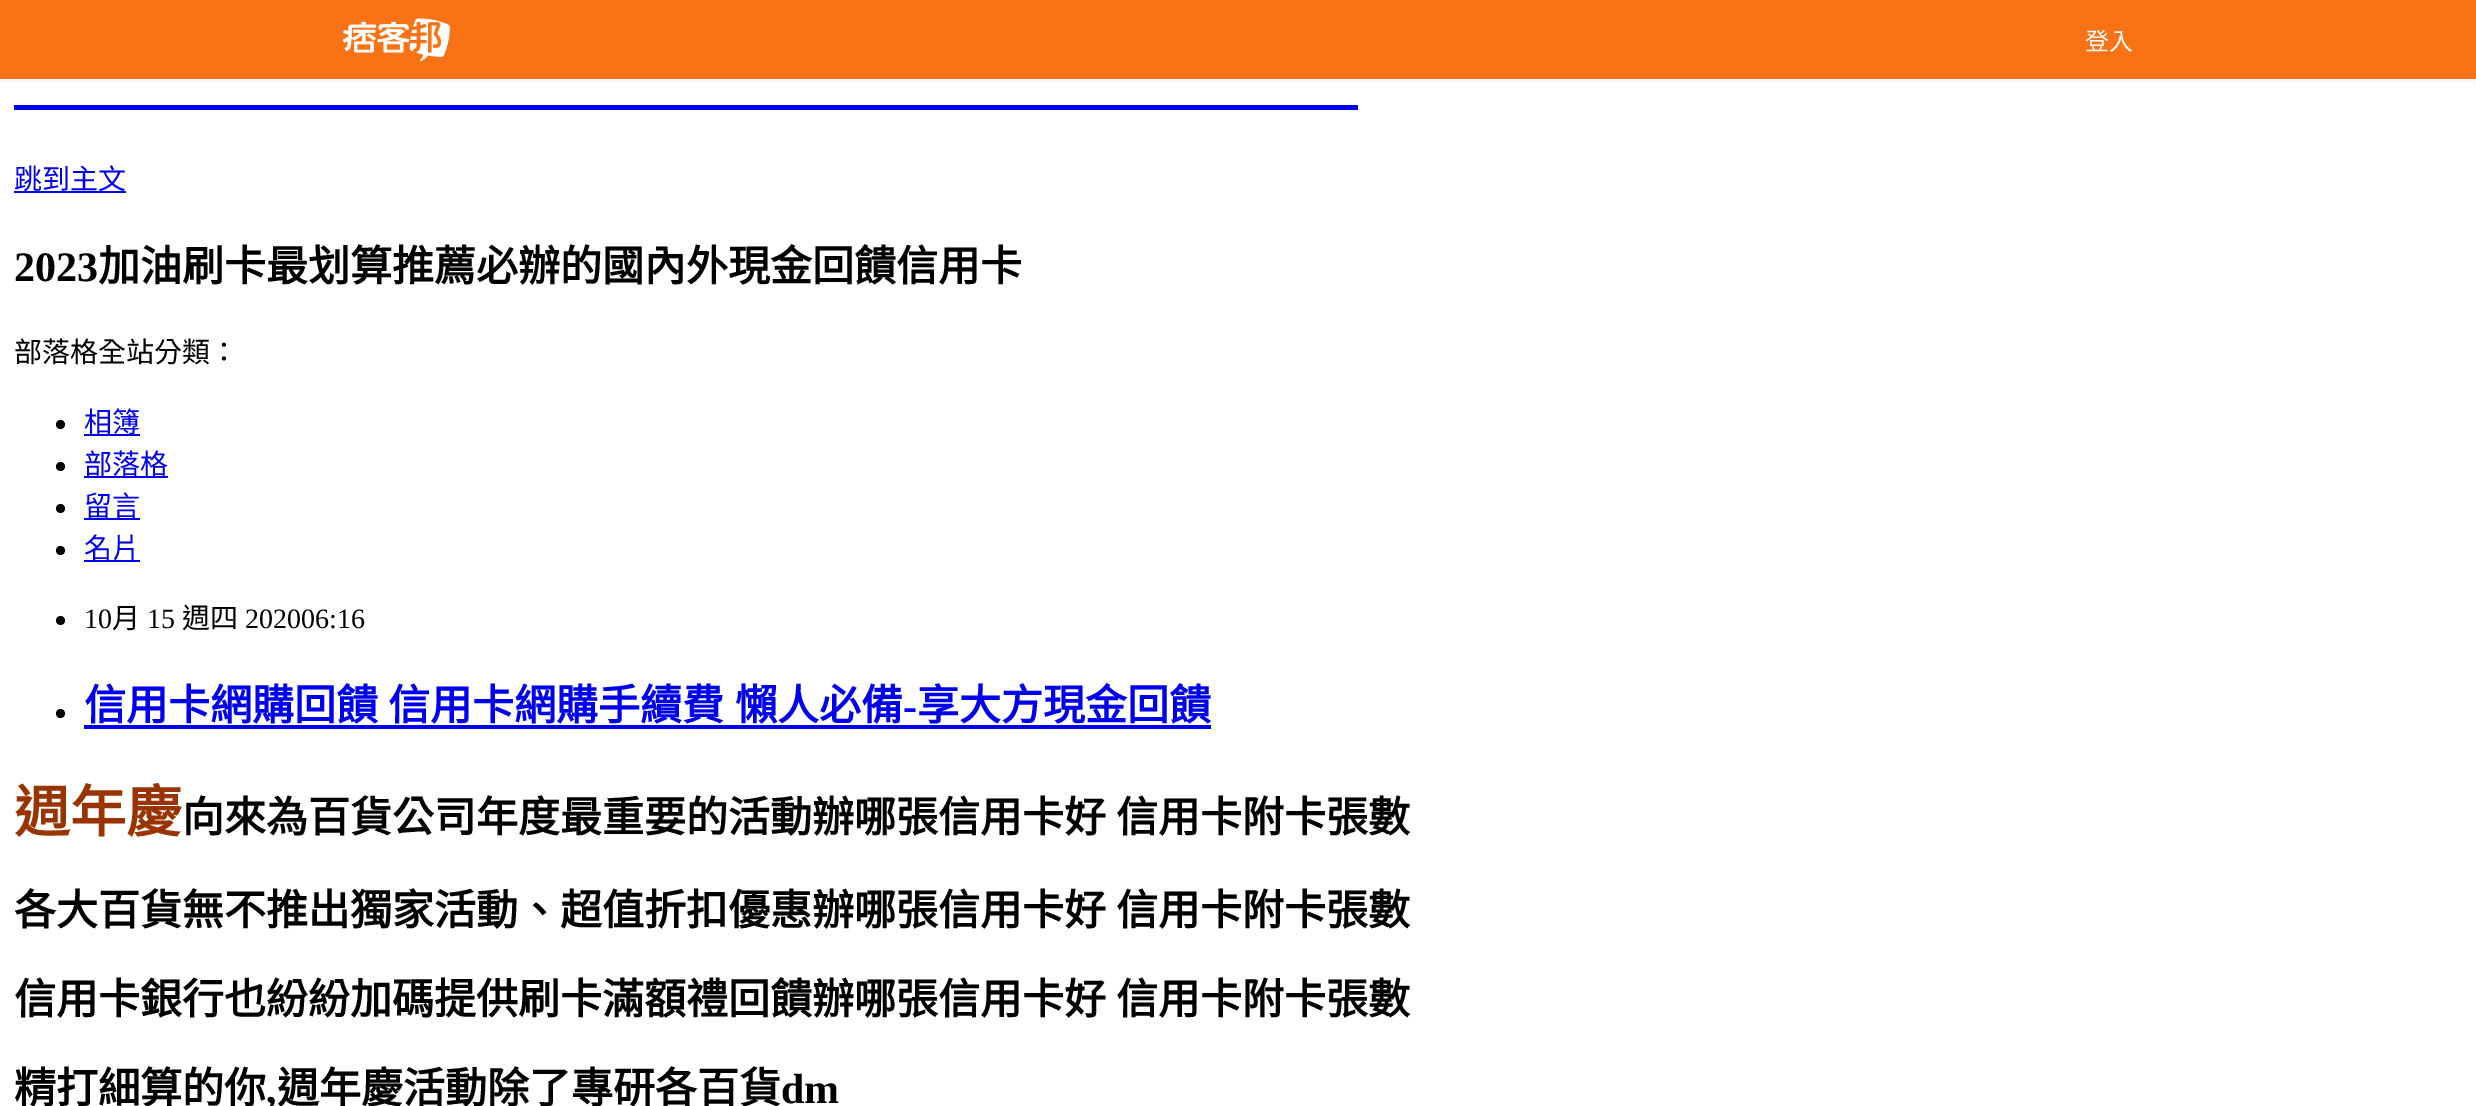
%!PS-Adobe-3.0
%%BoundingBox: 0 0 2476 1106
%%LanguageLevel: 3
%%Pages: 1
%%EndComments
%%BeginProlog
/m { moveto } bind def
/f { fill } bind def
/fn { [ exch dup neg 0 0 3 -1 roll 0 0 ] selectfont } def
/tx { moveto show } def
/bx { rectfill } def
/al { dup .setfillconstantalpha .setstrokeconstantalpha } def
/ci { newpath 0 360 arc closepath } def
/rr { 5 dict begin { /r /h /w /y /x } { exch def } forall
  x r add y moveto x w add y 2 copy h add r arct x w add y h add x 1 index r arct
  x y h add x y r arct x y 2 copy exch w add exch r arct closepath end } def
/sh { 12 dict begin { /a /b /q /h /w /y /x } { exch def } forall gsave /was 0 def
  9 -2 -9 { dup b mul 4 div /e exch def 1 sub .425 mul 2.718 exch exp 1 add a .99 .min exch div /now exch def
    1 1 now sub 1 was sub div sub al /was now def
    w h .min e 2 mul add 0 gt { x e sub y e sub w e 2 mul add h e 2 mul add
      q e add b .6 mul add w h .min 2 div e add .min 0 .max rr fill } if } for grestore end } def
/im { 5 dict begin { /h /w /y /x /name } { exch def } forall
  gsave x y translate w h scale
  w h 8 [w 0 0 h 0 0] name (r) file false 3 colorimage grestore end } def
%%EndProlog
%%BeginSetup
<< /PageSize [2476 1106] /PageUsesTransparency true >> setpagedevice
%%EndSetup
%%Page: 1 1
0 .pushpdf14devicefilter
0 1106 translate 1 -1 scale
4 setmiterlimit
1 setgray
0 0 2476 1106 bx
0 setgray
0 2 2476 79 0 2 0.05 sh
0.976 0.451 0.086 setrgbcolor
0 0 2476 79 bx
(image0.raw) 343 18 107 43 im
/NotoSansCJKTC-Regular 24 fn
1 setgray
(登入) 2085 50 tx
0 0 0.933 setrgbcolor
14 105 1344 5 bx
14 191 112 2 bx
/NotoSansCJKTC-Regular 28 fn
(跳到主文) 14 189 tx
/LiberationSerif-Bold 42 fn
0 setgray
(2023) 14 281 tx
/NotoSansCJKTC-Bold 42 fn
(加油刷卡最划算推薦必辦的國內外現金回饋信用卡) 98 281 tx
/NotoSansCJKTC-Regular 28 fn
(部落格全站分類：) 14 362 tx
60.5 424.5 4.5 ci f
0 0 0.933 setrgbcolor
84 434 56 2 bx
(相簿) 84 432 tx
0 setgray
60.5 466.5 4.5 ci f
0 0 0.933 setrgbcolor
84 476 84 2 bx
(部落格) 84 474 tx
0 setgray
60.5 508.5 4.5 ci f
0 0 0.933 setrgbcolor
84 518 56 2 bx
(留言) 84 516 tx
0 setgray
60.5 550.5 4.5 ci f
0 0 0.933 setrgbcolor
84 560 56 2 bx
(名片) 84 558 tx
0 setgray
60.5 620.5 4.5 ci f
/LiberationSerif-Regular 28 fn
(10) 84 628 tx
/NotoSansCJKTC-Regular 28 fn
(月) 112 628 tx
/LiberationSerif-Regular 28 fn
(15) 147 628 tx
/NotoSansCJKTC-Regular 28 fn
(週四) 182 628 tx
/LiberationSerif-Regular 28 fn
(202006:16) 245 628 tx
60.5 713.5 4.5 ci f
/NotoSansCJKTC-Bold 42 fn
0 0 0.933 setrgbcolor
84 720 m 1 0 32 (信用卡網購回饋 信用卡網購手續費 懶人必備) widthshow
/LiberationSerif-Bold 42 fn
(-) 903 720 tx
84 725 1127 4 bx
/NotoSansCJKTC-Bold 42 fn
(享大方現金回饋) 917 720 tx
/NotoSansCJKTC-Bold 56 fn
0.6 0.2 0 setrgbcolor
(週年慶) 14 832 tx
/NotoSansCJKTC-Bold 42 fn
0 setgray
(向來為百貨公司年度最重要的活動) 182 832 tx
812 832 m 1 0 32 (辦哪張信用卡好 信用卡附卡張數) widthshow
(各大百貨無不推出獨家活動、超值折扣優惠) 14 925 tx
812 925 m 1 0 32 (辦哪張信用卡好 信用卡附卡張數) widthshow
(信用卡銀行也紛紛加碼提供刷卡滿額禮回饋) 14 1014 tx
812 1014 m 1 0 32 (辦哪張信用卡好 信用卡附卡張數) widthshow
(精打細算的你) 14 1103 tx
/LiberationSerif-Bold 42 fn
(,) 266 1103 tx
/NotoSansCJKTC-Bold 42 fn
(週年慶活動除了專研各百貨) 277 1103 tx
/LiberationSerif-Bold 42 fn
(dm) 781 1103 tx
.poppdf14devicefilter showpage
%%EOF
